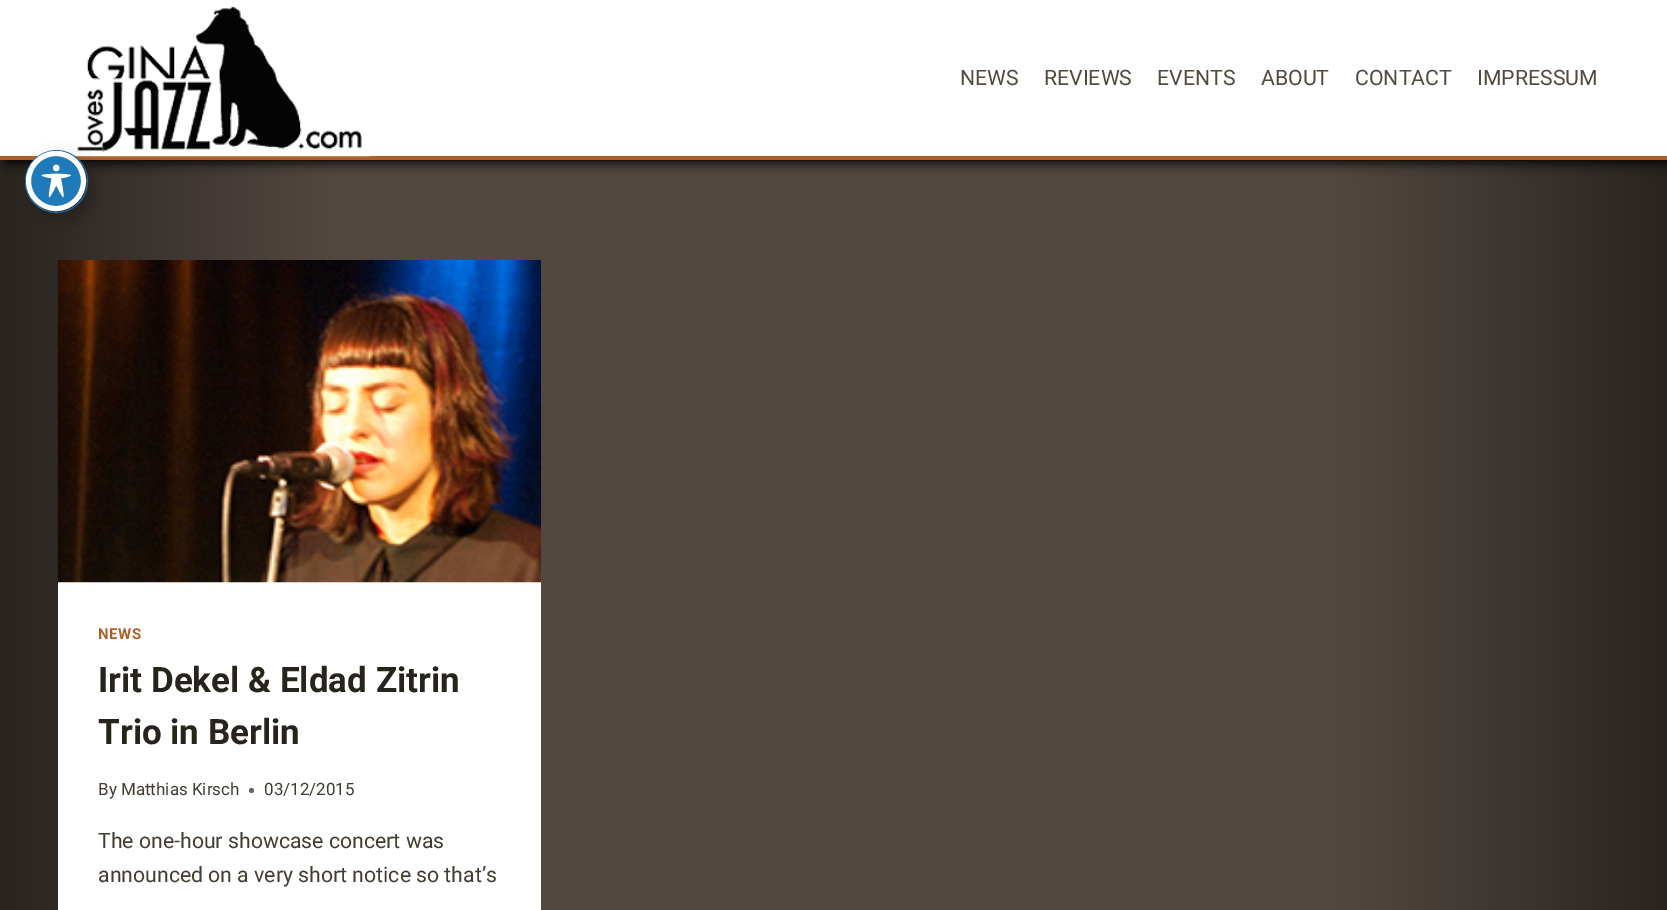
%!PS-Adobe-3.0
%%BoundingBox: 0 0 1667 910
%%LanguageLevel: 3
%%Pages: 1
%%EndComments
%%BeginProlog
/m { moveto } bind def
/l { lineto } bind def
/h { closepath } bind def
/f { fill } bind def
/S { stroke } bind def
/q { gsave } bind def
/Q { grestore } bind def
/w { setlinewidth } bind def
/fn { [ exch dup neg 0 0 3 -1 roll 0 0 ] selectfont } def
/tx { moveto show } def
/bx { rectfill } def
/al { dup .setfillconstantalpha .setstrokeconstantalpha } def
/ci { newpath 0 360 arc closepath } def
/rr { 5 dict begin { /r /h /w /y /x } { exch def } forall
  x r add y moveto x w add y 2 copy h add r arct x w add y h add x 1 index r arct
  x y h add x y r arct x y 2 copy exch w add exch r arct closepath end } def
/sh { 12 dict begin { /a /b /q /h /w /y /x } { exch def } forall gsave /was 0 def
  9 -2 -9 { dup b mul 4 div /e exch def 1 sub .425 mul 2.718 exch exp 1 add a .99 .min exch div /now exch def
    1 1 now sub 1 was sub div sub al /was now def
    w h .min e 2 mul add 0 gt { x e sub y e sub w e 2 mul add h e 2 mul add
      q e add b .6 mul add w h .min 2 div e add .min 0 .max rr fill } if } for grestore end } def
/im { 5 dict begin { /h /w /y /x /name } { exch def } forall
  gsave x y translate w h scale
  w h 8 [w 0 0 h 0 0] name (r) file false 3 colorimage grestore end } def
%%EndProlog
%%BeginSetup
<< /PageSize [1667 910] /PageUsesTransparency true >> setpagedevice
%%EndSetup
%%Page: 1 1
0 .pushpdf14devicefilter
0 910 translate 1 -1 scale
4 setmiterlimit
1 setgray
0 0 1667 910 bx
q 0 160 m 1667 160 l 1667 910 l 0 910 l h clip newpath
<< /ShadingType 2 /ColorSpace /DeviceRGB /Coords [0 743 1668 743] /Extend [true true] /Function << /FunctionType 3 /Domain [0 1] /Functions [<< /FunctionType 2 /Domain [0 1] /C0 [0.161 0.141 0.125] /C1 [0.325 0.282 0.255] /N 1 >> << /FunctionType 2 /Domain [0 1] /C0 [0.325 0.282 0.255] /C1 [0.325 0.282 0.255] /N 1 >> << /FunctionType 2 /Domain [0 1] /C0 [0.325 0.282 0.255] /C1 [0.161 0.141 0.125] /N 1 >>] /Bounds [0.2 0.8] /Encode [0 1 0 1 0 1] >> >> shfill Q
0 setgray
6 3 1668 160 0 6 1 sh
1 setgray
0 0 1667 156 bx
0.69 0.373 0.169 setrgbcolor
0 156 1667 4 bx
(image1.raw) 57 6 313 151 im
0.118 0.478 0.725 setrgbcolor
56.5 181.5 31 ci S
0 setgray
34 161 60 60 30 10 0.2 sh
0.118 0.478 0.725 setrgbcolor
56 181 27.5 ci q f Q
1 setgray
5 w
S
(image0.raw) 41 164 30 34 im
/Roboto-Regular 21.25 fn
0.314 0.29 0.251 setrgbcolor
(NEWS) 960 85 tx
(REVIEWS) 1044 85 tx
(EVENTS) 1157 85 tx
(ABOUT) 1261 85 tx
(CONTACT) 1355 85 tx
(IMPRESSUM) 1477 85 tx
1 setgray
58 582 483 328 bx
(image2.raw) 57 260 485 323 im
/Roboto-Bold 15 fn
0.69 0.373 0.169 setrgbcolor
98 639 m 0.5 0 (NEWS) ashow
/Roboto-Bold 35 fn
0.153 0.141 0.114 setrgbcolor
(Irit Dekel & Eldad Zitrin) 98 692 tx
(Trio in Berlin) 98 744 tx
/Roboto-Regular 17 fn
0.259 0.239 0.2 setrgbcolor
(By Matthias Kirsch) 98 795 tx
0.408 0.392 0.361 setrgbcolor
251.5 790.5 2.5 ci f
0.259 0.239 0.2 setrgbcolor
(03/12/2015) 264 795 tx
/Roboto-Regular 21.25 fn
(The one-hour showcase concert was) 98 848 tx
(announced on a very short notice so that’s) 98 882 tx
.poppdf14devicefilter showpage
%%EOF
